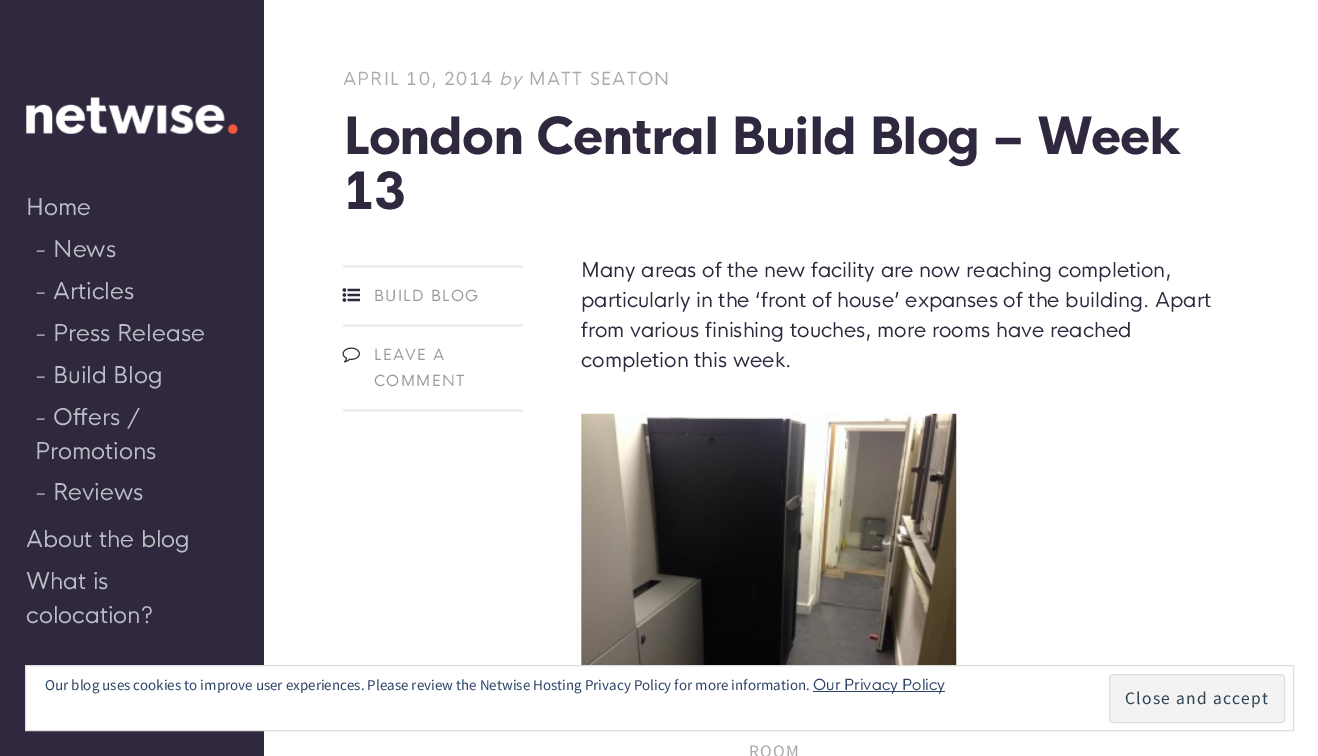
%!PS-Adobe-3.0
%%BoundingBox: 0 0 1318 756
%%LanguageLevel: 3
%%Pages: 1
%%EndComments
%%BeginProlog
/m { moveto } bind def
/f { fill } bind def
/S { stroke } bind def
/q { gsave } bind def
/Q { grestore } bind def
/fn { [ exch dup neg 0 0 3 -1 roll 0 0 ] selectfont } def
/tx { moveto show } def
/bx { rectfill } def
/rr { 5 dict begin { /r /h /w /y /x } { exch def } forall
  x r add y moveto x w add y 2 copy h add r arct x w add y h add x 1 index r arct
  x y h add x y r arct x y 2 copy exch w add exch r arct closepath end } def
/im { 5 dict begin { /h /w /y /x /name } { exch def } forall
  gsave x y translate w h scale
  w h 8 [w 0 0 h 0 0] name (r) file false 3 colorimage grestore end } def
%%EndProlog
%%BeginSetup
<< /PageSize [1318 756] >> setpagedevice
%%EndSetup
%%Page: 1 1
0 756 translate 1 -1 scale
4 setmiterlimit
1 setgray
0 0 1318 756 bx
0.188 0.157 0.243 setrgbcolor
0 0 264 756 bx
(image0.raw) 26 97 212 37 im
/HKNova-Regular 22.5 fn
0.729 0.749 0.773 setrgbcolor
(Home) 26 215 tx
(- News) 35 257 tx
(- Articles) 35 299 tx
(- Press Release) 35 341 tx
(- Build Blog) 35 383 tx
(- Offers /) 35 425 tx
(Promotions) 35 459 tx
(- Reviews) 35 500 tx
(About the blog) 26 547 tx
(What is) 26 589 tx
(colocation?) 26 623 tx
/HKNova-Regular 17.5 fn
0.667 setgray
343 85 m 1.25 0 (APRIL 10, 2014) ashow
/HKNova-Italic 17.5 fn
499 85 m 1.25 0 (by) ashow
/HKNova-Regular 17.5 fn
529 85 m 1.25 0 (MATT SEATON) ashow
/HKNova-ExtraBold 50 fn
0.188 0.157 0.243 setrgbcolor
343 154 m -1.25 0 (London Central Build Blog – Week) ashow
343 209 m -1.25 0 (13) ashow
0.933 setgray
343 265 180 3 bx
343 324 180 3 bx
(image1.raw) 342 288 18 14 im
/HKNova-Regular 15 fn
0.6 setgray
374 301 m 1.25 0 (BUILD BLOG) ashow
0.933 setgray
343 409 180 3 bx
(image2.raw) 342 347 18 16 im
0.6 setgray
374 360 m 1.25 0 (LEAVE A) ashow
374 386 m 1.25 0 (COMMENT) ashow
/HKNova-Regular 20 fn
0.188 0.157 0.243 setrgbcolor
(Many areas of the new facility are now reaching completion,) 581 277 tx
(particularly in the ‘front of house’ expanses of the building. Apart) 581 307 tx
(from various finishing touches, more rooms have reached) 581 337 tx
(completion this week.) 581 367 tx
(image3.raw) 581 413 376 252 im
/SourceSansPro-Regular 17.5 fn
0.667 setgray
749 757 m 1.25 0 (ROOM) ashow
1 setgray
26 666 238 64 bx
0.871 setgray
25.5 665.5 1268 65 rectstroke
/SourceSansPro-Regular 15 fn
0.18 0.267 0.404 setrgbcolor
(Our blog uses cookies to improve user experiences. Please review the Netwise Hosting Privacy Policy for more information.) 45 690 tx
813 691 132 1 bx
/HKNova-Regular 15 fn
(Our Privacy Policy) 813 690 tx
0.953 setgray
1109.5 674.5 175 48 3.5 rr q f Q
0.871 setgray
S
/SourceSansPro-Regular 17.5 fn
0.18 0.267 0.325 setrgbcolor
1125 704 m 1.25 0 (Close and accept) ashow
showpage
%%EOF
